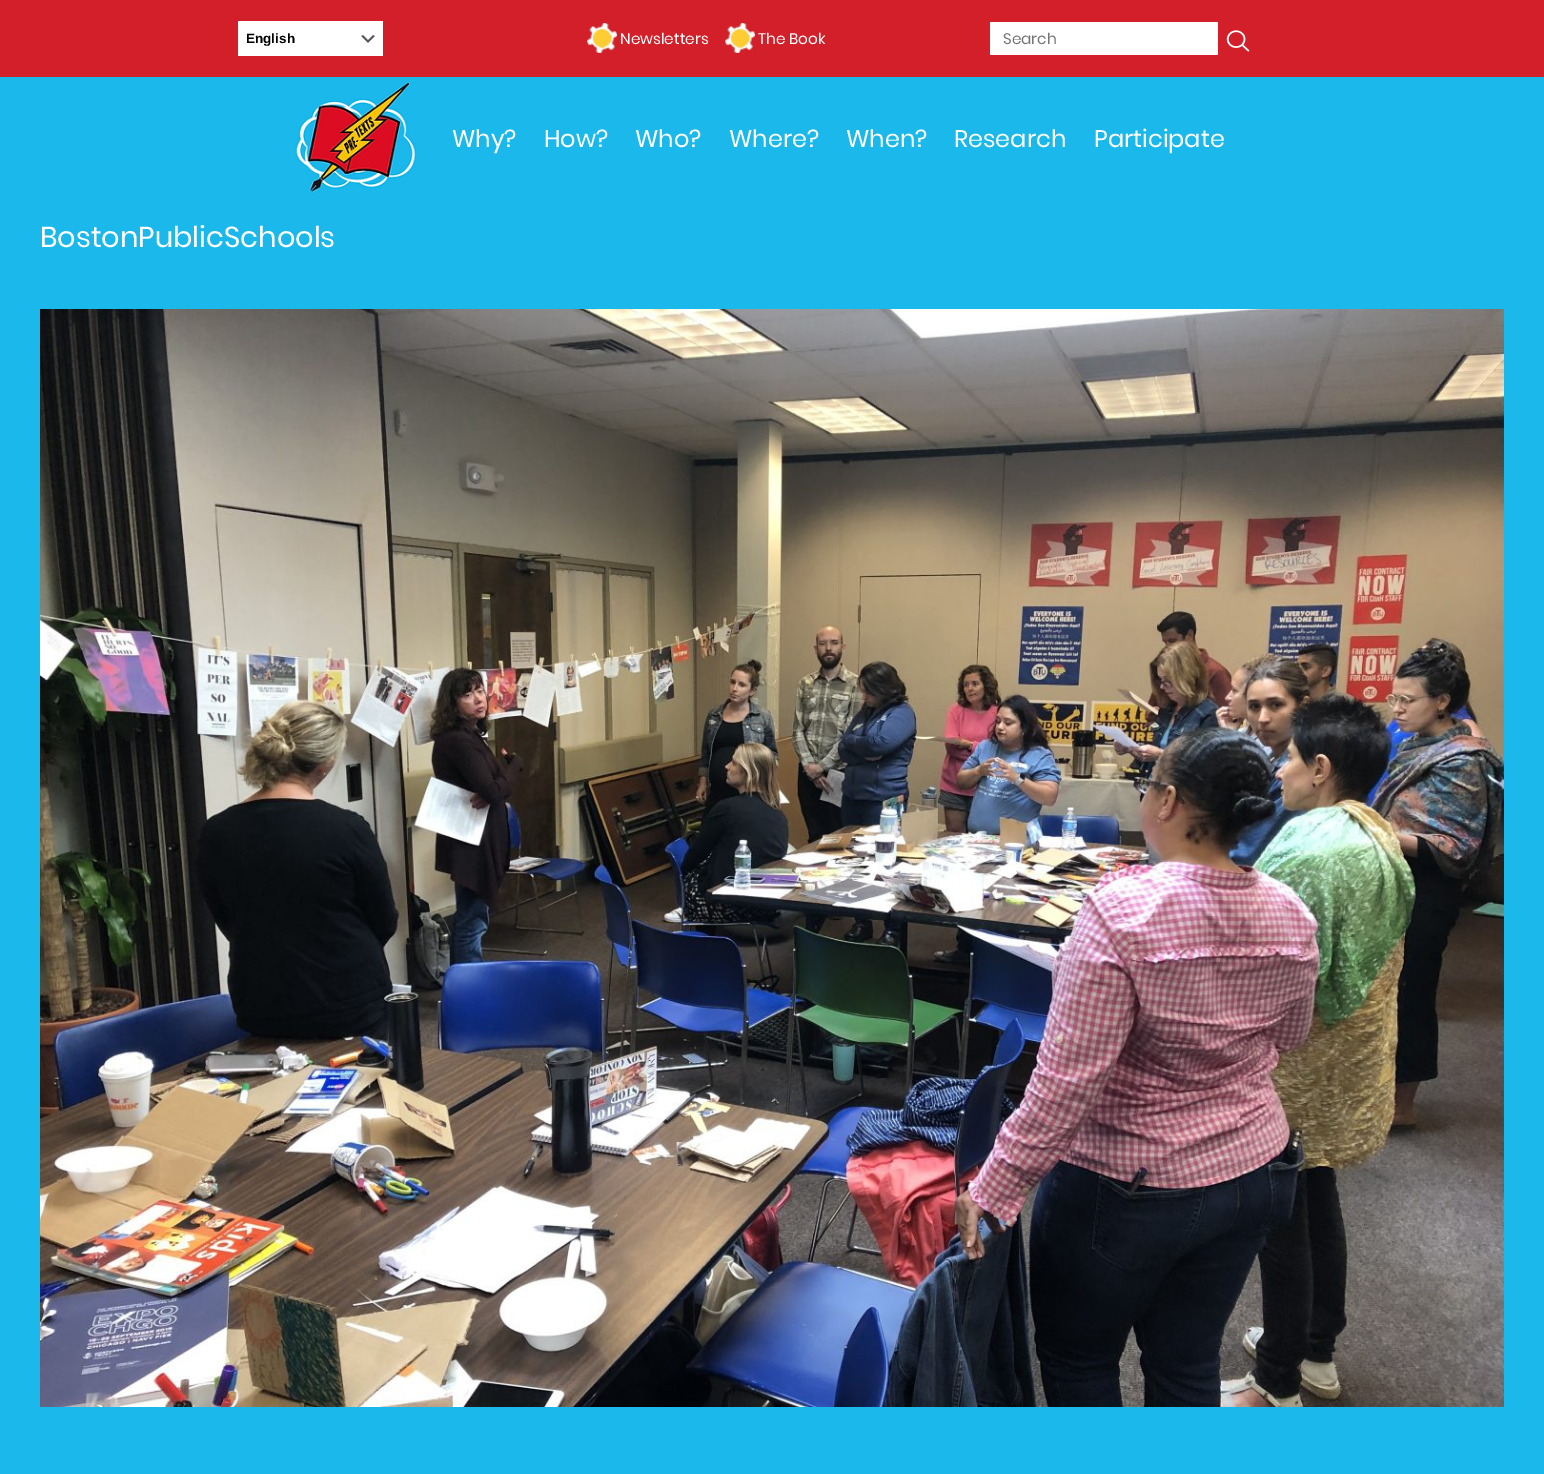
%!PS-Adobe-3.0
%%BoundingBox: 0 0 1544 1474
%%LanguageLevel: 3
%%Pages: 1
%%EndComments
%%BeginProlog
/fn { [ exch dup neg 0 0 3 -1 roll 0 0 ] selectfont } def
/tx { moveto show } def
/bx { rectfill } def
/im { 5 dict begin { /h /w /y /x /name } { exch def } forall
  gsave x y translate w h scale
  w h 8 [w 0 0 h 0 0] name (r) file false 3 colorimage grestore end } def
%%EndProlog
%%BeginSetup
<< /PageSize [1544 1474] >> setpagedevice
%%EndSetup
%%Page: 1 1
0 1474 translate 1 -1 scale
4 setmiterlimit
0.827 0.122 0.165 setrgbcolor
0 0 1544 1474 bx
1 setgray
238 21 145 35 bx
(image0.raw) 361 35 14 8 im
/LiberationSans-Bold 13.5 fn
0 setgray
(English) 246 43 tx
(image1.raw) 587 23 30 30 im
/Poppins-Regular 15.25 fn
1 setgray
(Newsletters) 620 44 tx
(image1.raw) 725 23 30 30 im
(The Book) 758 44 tx
990 22 228 33 bx
0.459 setgray
(Search) 1003 44 tx
(image2.raw) 1226 30 24 22 im
0.102 0.722 0.922 setrgbcolor
0 77 1544 1397 bx
(image3.raw) 295 82 121 111 im
/Poppins-Regular 24 fn
1 setgray
(Why?) 452 147 tx
(How?) 544 147 tx
(Who?) 635 147 tx
(Where?) 729 147 tx
(When?) 846 147 tx
(Research) 954 147 tx
(Participate) 1094 147 tx
/Poppins-Regular 28.75 fn
(BostonPublicSchools) 40 247 tx
(image4.raw) 40 309 1464 1098 im
showpage
%%EOF
